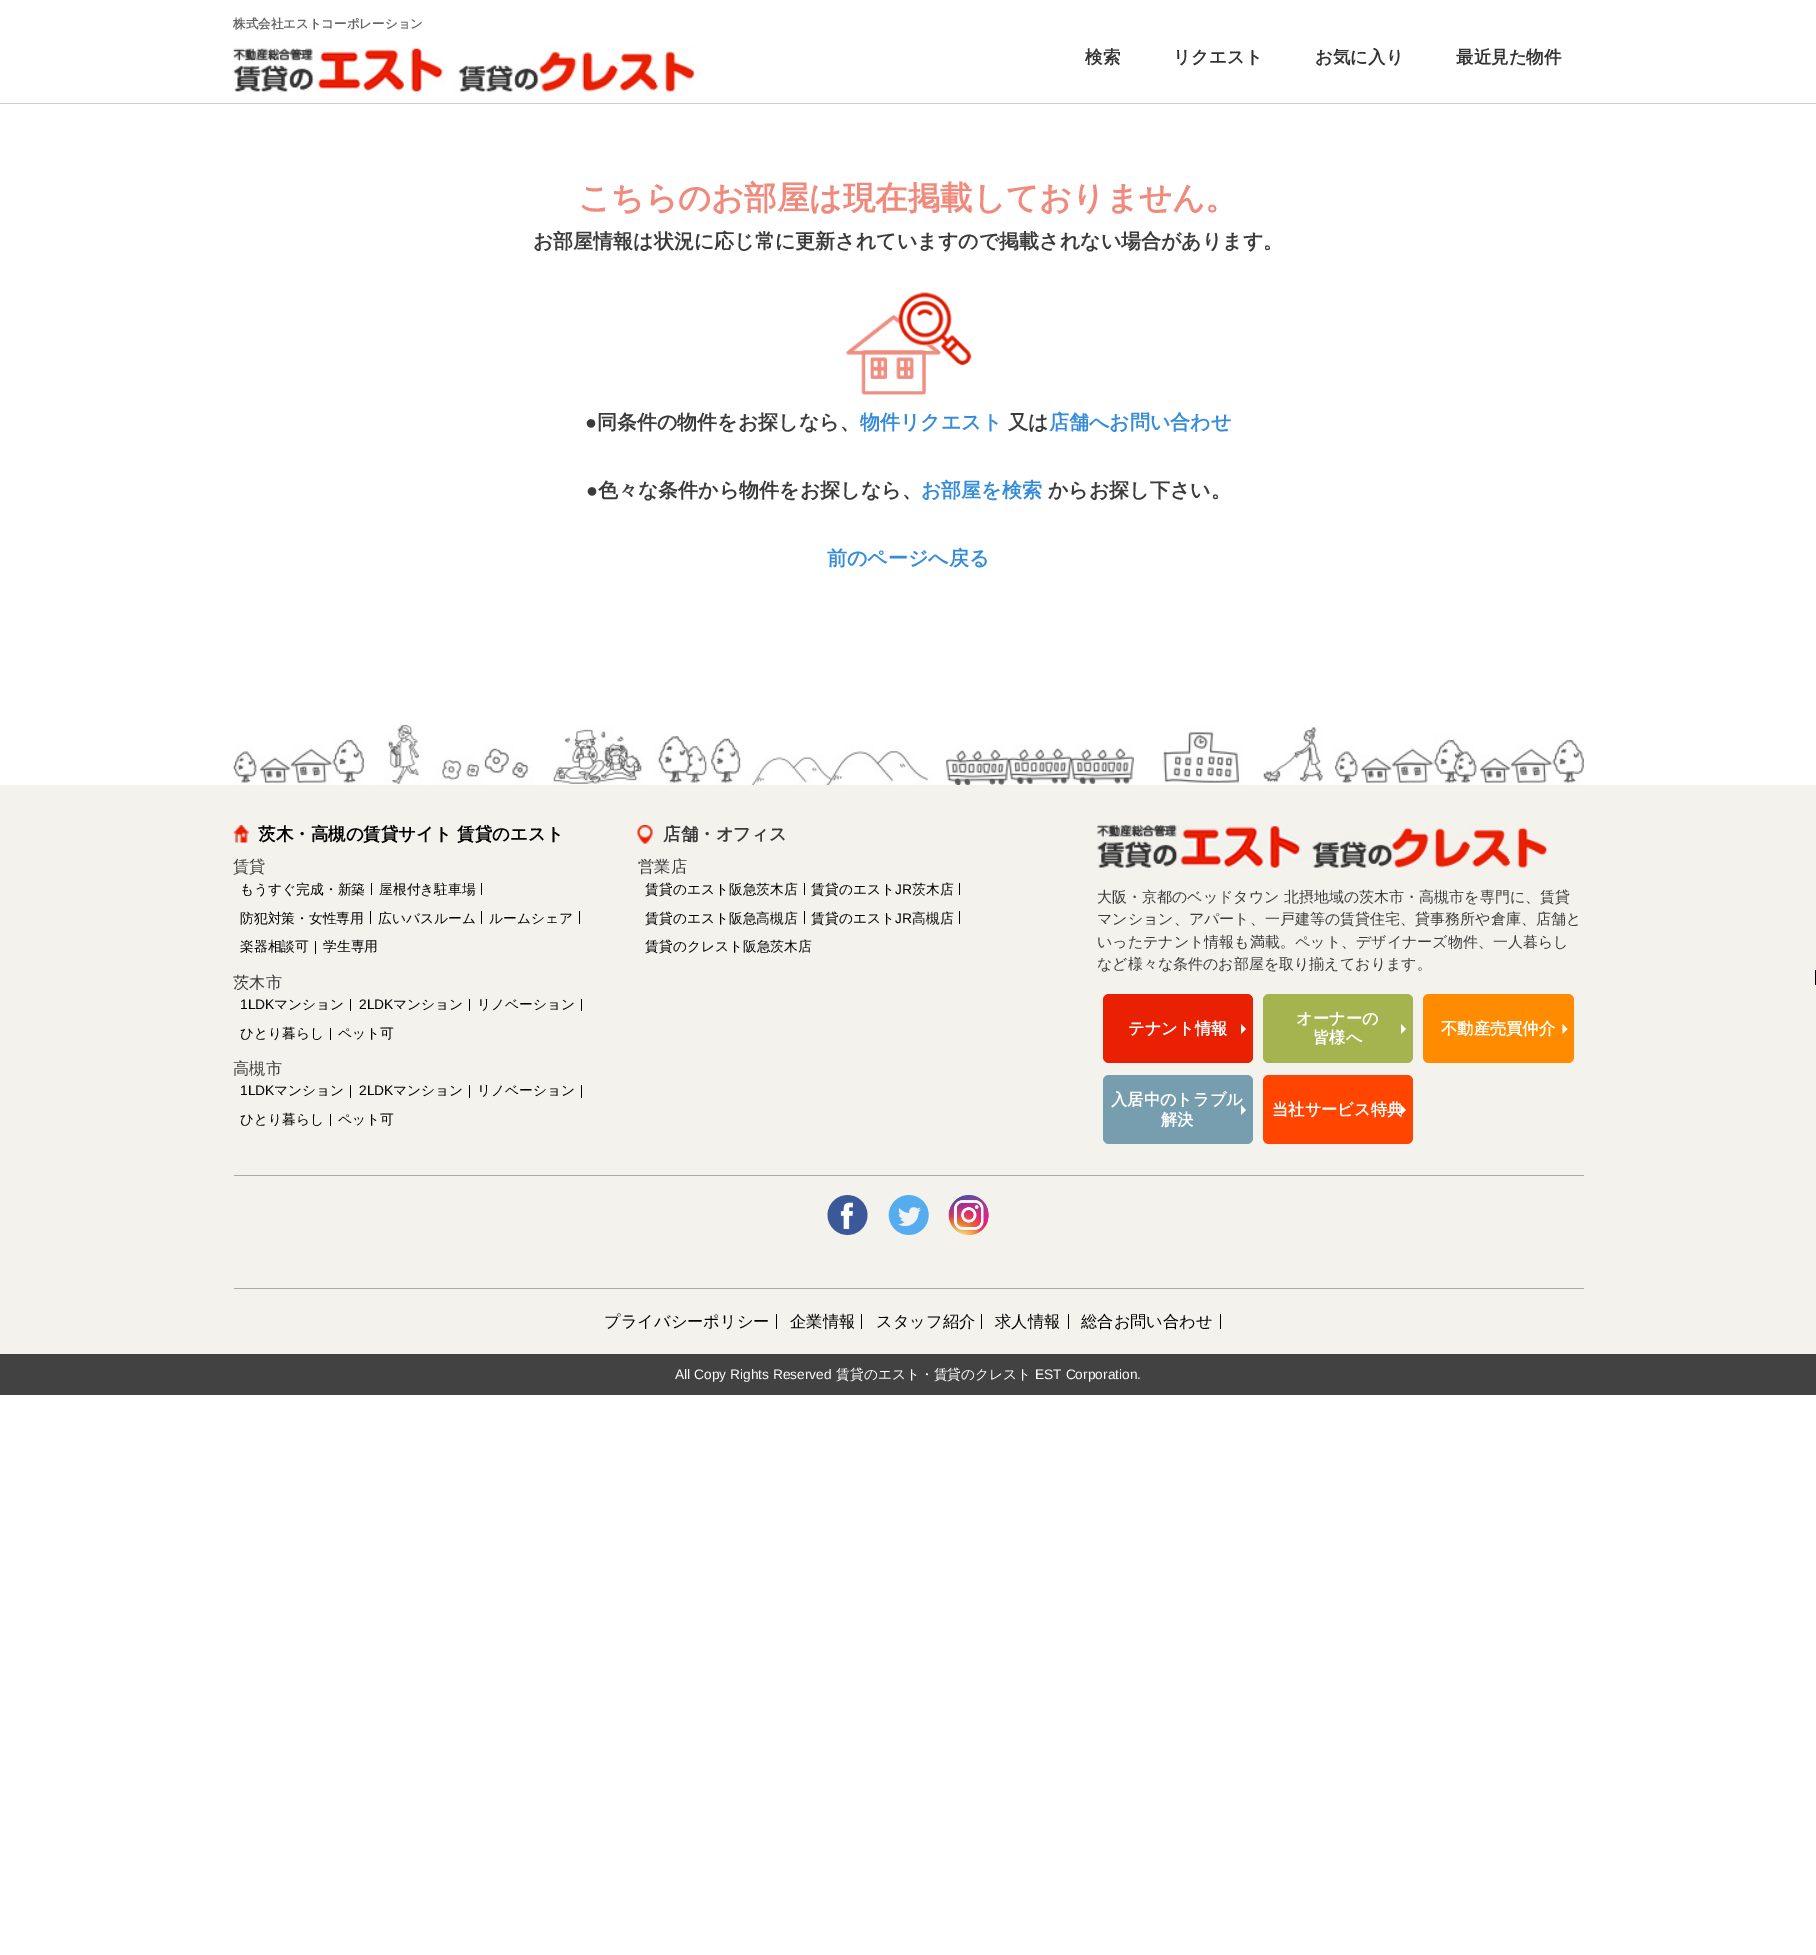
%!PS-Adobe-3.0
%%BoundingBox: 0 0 1816 1955
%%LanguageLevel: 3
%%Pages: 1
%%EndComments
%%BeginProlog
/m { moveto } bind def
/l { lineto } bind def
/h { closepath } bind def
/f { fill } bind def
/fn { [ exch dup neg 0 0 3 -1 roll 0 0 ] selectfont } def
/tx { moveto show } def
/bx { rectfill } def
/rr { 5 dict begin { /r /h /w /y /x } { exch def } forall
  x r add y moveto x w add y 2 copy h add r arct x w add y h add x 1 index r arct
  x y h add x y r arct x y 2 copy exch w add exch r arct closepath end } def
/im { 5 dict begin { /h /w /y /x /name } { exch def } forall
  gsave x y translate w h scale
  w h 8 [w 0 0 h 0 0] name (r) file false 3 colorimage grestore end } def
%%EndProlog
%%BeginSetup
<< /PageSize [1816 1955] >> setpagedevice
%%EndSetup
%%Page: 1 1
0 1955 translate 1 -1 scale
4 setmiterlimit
1 setgray
0 0 1816 1955 bx
/WenQuanYiZenHei-Bold 12.5 fn
0.4 setgray
(株式会社エストコーポレーション) 233 28 tx
0.804 setgray
0 103 1816 1 bx
(image0.raw) 233 46 461 48 im
/WenQuanYiZenHei-Bold 17.5 fn
0.2 setgray
(検索) 1085 63 tx
(リクエスト) 1173 63 tx
(お気に入り) 1315 63 tx
(最近見た物件) 1456 63 tx
/WenQuanYiZenHei-Bold 32.5 fn
0.937 0.541 0.49 setrgbcolor
(こちらのお部屋は現在掲載しておりません。) 578 209 tx
/WenQuanYiZenHei-Bold 20 fn
0.231 setgray
(お部屋情報は状況に応じ常に更新されていますので掲載されない場合があります。) 533 248 tx
(image1.raw) 846 292 126 103 im
/LiberationSans-Bold 20 fn
(●) 585 429 tx
/WenQuanYiZenHei-Bold 20 fn
(同条件の物件をお探しなら、) 597 429 tx
0.208 0.549 0.855 setrgbcolor
(物件リクエスト) 860 429 tx
0.231 setgray
(又は) 1008 429 tx
0.208 0.549 0.855 setrgbcolor
(店舗へお問い合わせ) 1049 429 tx
/LiberationSans-Bold 20 fn
0.231 setgray
(●) 586 497 tx
/WenQuanYiZenHei-Bold 20 fn
(色々な条件から物件をお探しなら、) 598 497 tx
0.208 0.549 0.855 setrgbcolor
(お部屋を検索) 921 497 tx
0.231 setgray
(からお探し下さい。) 1048 497 tx
0.208 0.549 0.855 setrgbcolor
(前のページへ戻る) 827 565 tx
(image2.raw) 233 725 1351 60 im
0.953 0.949 0.929 setrgbcolor
0 785 1816 569 bx
(image3.raw) 233 825 16 18 im
/WenQuanYiZenHei-Bold 17.5 fn
0 setgray
(茨木・高槻の賃貸サイト 賃貸のエスト) 258 840 tx
/WenQuanYiZenHei-Medium 16.25 fn
0.231 setgray
(賃貸) 233 872 tx
/WenQuanYiZenHei-Medium 13.75 fn
0 setgray
(もうすぐ完成・新築) 240 894 tx
371 883 1 12 bx
(屋根付き駐車場) 379 894 tx
481 883 1 12 bx
(防犯対策・女性専用) 240 923 tx
370 911 1 13 bx
(広いバスルーム) 378 923 tx
481 911 1 13 bx
(ルームシェア) 489 923 tx
579 911 1 13 bx
(楽器相談可) 240 951 tx
315 941 1 13 bx
(学生専用) 323 951 tx
/WenQuanYiZenHei-Medium 16.25 fn
0.231 setgray
(茨木市) 233 988 tx
/LiberationSans-Regular 13.75 fn
0 setgray
(1LDK) 240 1009 tx
/WenQuanYiZenHei-Medium 13.75 fn
(マンション) 274 1009 tx
350 999 1 12 bx
/LiberationSans-Regular 13.75 fn
(2LDK) 359 1009 tx
/WenQuanYiZenHei-Medium 13.75 fn
(マンション) 393 1009 tx
469 999 1 12 bx
(リノベーション) 477 1009 tx
581 999 1 12 bx
(ひとり暮らし) 240 1038 tx
330 1028 1 12 bx
(ペット可) 338 1038 tx
/WenQuanYiZenHei-Medium 16.25 fn
0.231 setgray
(高槻市) 233 1074 tx
/LiberationSans-Regular 13.75 fn
0 setgray
(1LDK) 240 1095 tx
/WenQuanYiZenHei-Medium 13.75 fn
(マンション) 274 1095 tx
350 1085 1 13 bx
/LiberationSans-Regular 13.75 fn
(2LDK) 359 1095 tx
/WenQuanYiZenHei-Medium 13.75 fn
(マンション) 393 1095 tx
469 1085 1 13 bx
(リノベーション) 477 1095 tx
581 1085 1 13 bx
(ひとり暮らし) 240 1124 tx
330 1114 1 12 bx
(ペット可) 338 1124 tx
(image4.raw) 637 825 16 19 im
/WenQuanYiZenHei-Bold 17.5 fn
0.231 setgray
(店舗・オフィス) 663 840 tx
/WenQuanYiZenHei-Medium 16.25 fn
(営業店) 638 872 tx
/WenQuanYiZenHei-Medium 13.75 fn
0 setgray
(賃貸のエスト阪急茨木店) 645 894 tx
804 883 1 12 bx
(賃貸のエスト) 811 894 tx
/LiberationSans-Regular 13.75 fn
(JR) 895 894 tx
/WenQuanYiZenHei-Medium 13.75 fn
(茨木店) 912 894 tx
959 883 1 12 bx
(賃貸のエスト阪急高槻店) 645 923 tx
804 911 1 13 bx
(賃貸のエスト) 811 923 tx
/LiberationSans-Regular 13.75 fn
(JR) 895 923 tx
/WenQuanYiZenHei-Medium 13.75 fn
(高槻店) 912 923 tx
959 911 1 13 bx
(賃貸のクレスト阪急茨木店) 645 951 tx
(image5.raw) 1097 824 450 44 im
/WenQuanYiZenHei-Medium 15 fn
0.231 setgray
(大阪・京都のベッドタウン 北摂地域の茨木市・高槻市を専門に、賃貸) 1097 902 tx
(マンション、アパート、一戸建等の賃貸住宅、貸事務所や倉庫、店舗と) 1097 924 tx
(いったテナント情報も満載。ペット、デザイナーズ物件、一人暮らし) 1097 947 tx
(など様々な条件のお部屋を取り揃えております。) 1097 969 tx
0.914 0.125 0.008 setrgbcolor
1103 994 150 69 6 rr f
/WenQuanYiZenHei-Bold 16.25 fn
1 setgray
(テナント情報) 1128 1034 tx
1241 1034 m 1241 1024 l 1246 1029 l h f
0.647 0.706 0.31 setrgbcolor
1263 994 150 69 6 rr f
1 setgray
(オーナーの) 1296 1024 tx
(皆様へ) 1313 1043 tx
1401 1034 m 1401 1024 l 1406 1029 l h f
1 0.549 0 setrgbcolor
1423 994 151 69 6 rr f
1 setgray
(不動産売買仲介) 1441 1034 tx
1562.5 1034 m 1562.5 1024 l 1567.5 1029 l h f
0.463 0.62 0.682 setrgbcolor
1103 1075 150 69 6 rr f
1 setgray
(入居中のトラブル) 1111 1105 tx
1241 1115 m 1241 1105 l 1246 1110 l h f
(解決) 1161 1125 tx
1 0.271 0 setrgbcolor
1263 1075 150 69 6 rr f
1 setgray
(当社サービス特典) 1272 1115 tx
1401 1115 m 1401 1105 l 1406 1110 l h f
0.667 setgray
234 1175 1350 1 bx
0 setgray
1815 970 1 15 bx
(image6.raw) 827 1195 41 40 im
(image7.raw) 888 1195 41 40 im
(image8.raw) 948 1195 41 40 im
0.667 setgray
234 1288 1350 1 bx
/WenQuanYiZenHei-Medium 16.25 fn
0 setgray
(プライバシーポリシー) 604 1327 tx
776 1314 1 15 bx
(企業情報) 790 1327 tx
861 1314 1 15 bx
(スタッフ紹介) 876 1327 tx
981 1314 1 15 bx
(求人情報) 995 1327 tx
1068 1314 1 15 bx
(総合お問い合わせ) 1081 1327 tx
1220 1314 1 15 bx
0.259 setgray
0 1354 1816 41 bx
/LiberationSans-Regular 13.75 fn
1 setgray
(All Copy Rights Reserved) 675 1379 tx
/WenQuanYiZenHei-Medium 13.75 fn
(賃貸のエスト・賃貸のクレスト) 836 1379 tx
/LiberationSans-Regular 13.75 fn
(EST Corporation.) 1035 1379 tx
showpage
%%EOF
